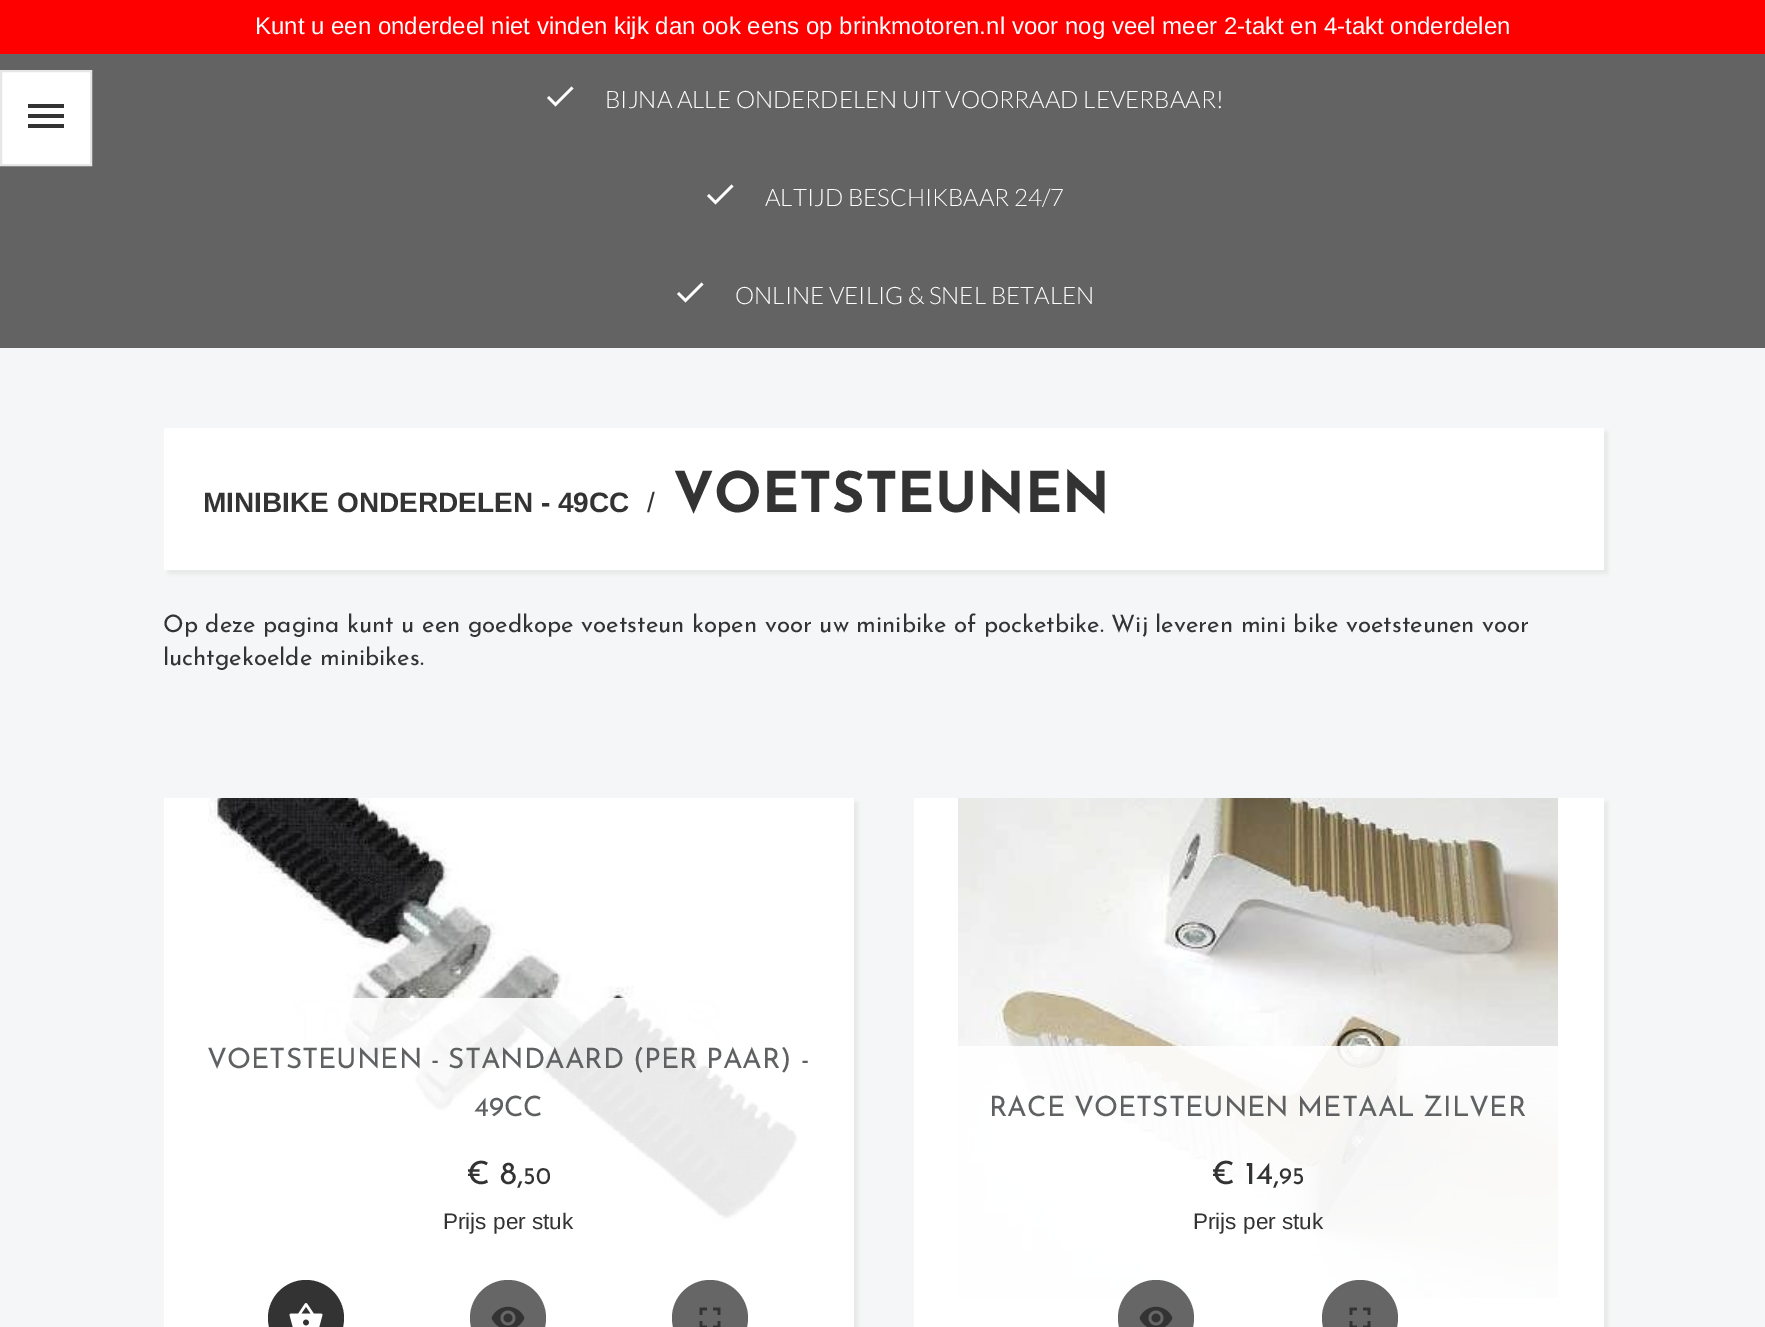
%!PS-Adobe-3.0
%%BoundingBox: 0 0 1765 1327
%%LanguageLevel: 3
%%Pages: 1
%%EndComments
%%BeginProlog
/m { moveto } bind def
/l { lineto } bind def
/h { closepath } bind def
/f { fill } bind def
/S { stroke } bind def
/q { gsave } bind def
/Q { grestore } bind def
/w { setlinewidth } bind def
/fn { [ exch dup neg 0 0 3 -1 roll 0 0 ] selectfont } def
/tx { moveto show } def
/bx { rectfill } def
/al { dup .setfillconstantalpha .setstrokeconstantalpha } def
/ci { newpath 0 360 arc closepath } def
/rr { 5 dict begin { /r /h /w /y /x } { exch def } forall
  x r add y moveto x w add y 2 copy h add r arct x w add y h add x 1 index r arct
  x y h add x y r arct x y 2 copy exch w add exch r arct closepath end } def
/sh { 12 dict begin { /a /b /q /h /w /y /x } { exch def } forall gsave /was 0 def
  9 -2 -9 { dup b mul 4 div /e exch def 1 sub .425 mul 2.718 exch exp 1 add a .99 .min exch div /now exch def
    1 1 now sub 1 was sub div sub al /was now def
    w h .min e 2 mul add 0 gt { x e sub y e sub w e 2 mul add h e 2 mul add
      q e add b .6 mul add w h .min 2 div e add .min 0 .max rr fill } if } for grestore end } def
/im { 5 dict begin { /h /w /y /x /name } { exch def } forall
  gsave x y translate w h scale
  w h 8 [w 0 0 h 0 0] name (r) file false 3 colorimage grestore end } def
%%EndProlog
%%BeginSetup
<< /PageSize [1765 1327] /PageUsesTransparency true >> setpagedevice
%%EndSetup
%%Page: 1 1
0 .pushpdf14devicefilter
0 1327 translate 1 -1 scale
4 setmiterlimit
1 0 0 setrgbcolor
0 0 1765 1327 bx
/LiberationSans-Regular 24 fn
1 setgray
(Kunt u een onderdeel niet vinden kijk dan ook eens op brinkmotoren.nl voor nog veel meer 2-takt en 4-takt onderdelen) 255 34 tx
0.388 setgray
0 54 1765 294 bx
1 setgray
1 71 m 91 71 l 91 165 l 1 165 l h q f Q
0.902 setgray
2 w
S
0.2 setgray
28 104 m 64 104 l 64 108 l 28 108 l h 28 118 m 28 114 l 64 114 l 64 118 l h 28 128 m 28 124 l 64 124 l 64 128 l h f
1 setgray
555.5 102.5 m 571.5 86.5 l 573.5 88.5 l 555.5 106.5 l 547 98 l 549 96 l h f
/Lato-Light 24 fn
(BIJNA ALLE ONDERDELEN UIT VOORRAAD LEVERBAAR!) 605 108 tx
715.5 200.5 m 731.5 184.5 l 733.5 186.5 l 715.5 204.5 l 707 196 l 709 194 l h f
(ALTIJD BESCHIKBAAR 24/7) 765 206 tx
685.5 298.5 m 701.5 282.5 l 703.5 284.5 l 685.5 302.5 l 677 294 l 679 292 l h f
(ONLINE VEILIG & SNEL BETALEN) 735 304 tx
0.961 0.965 0.969 setrgbcolor
0 348 1765 979 bx
0.843 setgray
168 432 1440 142 0 2 0.5 sh
1 setgray
164 428 1440 142 bx
/LiberationSans-Bold 28 fn
0.2 setgray
(MINIBIKE ONDERDELEN - 49CC) 203 512 tx
/LiberationSans-Regular 28 fn
(/) 647 512 tx
/JosefinSans-Bold 56 fn
(VOETSTEUNEN) 673 512 tx
/JosefinSans-Regular 24 fn
(Op deze pagina kunt u een goedkope voetsteun kopen voor uw minibike of pocketbike. Wij leveren mini bike voetsteunen voor) 163 632 tx
(luchtgekoelde minibikes.) 163 665 tx
0.843 setgray
168 802 690 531 0 2 0.5 sh
1 setgray
164 798 690 529 bx
(image0.raw) 208 798 592 426 im
0.9 al
295 998 505 226 bx
/JosefinSans-Regular 28 fn
1 al
0.369 0.376 0.384 setrgbcolor
(VOETSTEUNEN - STANDAARD \(PER PAAR\) -) 207 1068 tx
(49CC) 474 1116 tx
/JosefinSans-Regular 32 fn
0.2 setgray
(€ 8,) 466 1184 tx
/JosefinSans-Regular 24 fn
(50) 523 1184 tx
/LiberationSans-Regular 22.5 fn
(Prijs per stuk) 443 1229 tx
306 1318 38 ci f
(image1.raw) 289 1303 34 24 im
0.4 setgray
508 1318 38 ci f
(image2.raw) 491 1306 34 21 im
710 1318 38 ci f
(image3.raw) 699 1307 22 20 im
0.843 setgray
918 802 690 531 0 2 0.5 sh
1 setgray
914 798 690 529 bx
(image4.raw) 958 798 600 500 im
0.9 al
958 1046 600 252 bx
/JosefinSans-Regular 28 fn
1 al
0.369 0.376 0.384 setrgbcolor
(RACE VOETSTEUNEN METAAL ZILVER) 989 1116 tx
/JosefinSans-Regular 32 fn
0.2 setgray
(€ 14,) 1211 1184 tx
/JosefinSans-Regular 24 fn
(95) 1279 1184 tx
/LiberationSans-Regular 22.5 fn
(Prijs per stuk) 1193 1229 tx
0.4 setgray
1156 1318 38 ci f
(image2.raw) 1139 1306 34 21 im
1360 1318 38 ci f
(image3.raw) 1349 1307 22 20 im
.poppdf14devicefilter showpage
%%EOF
